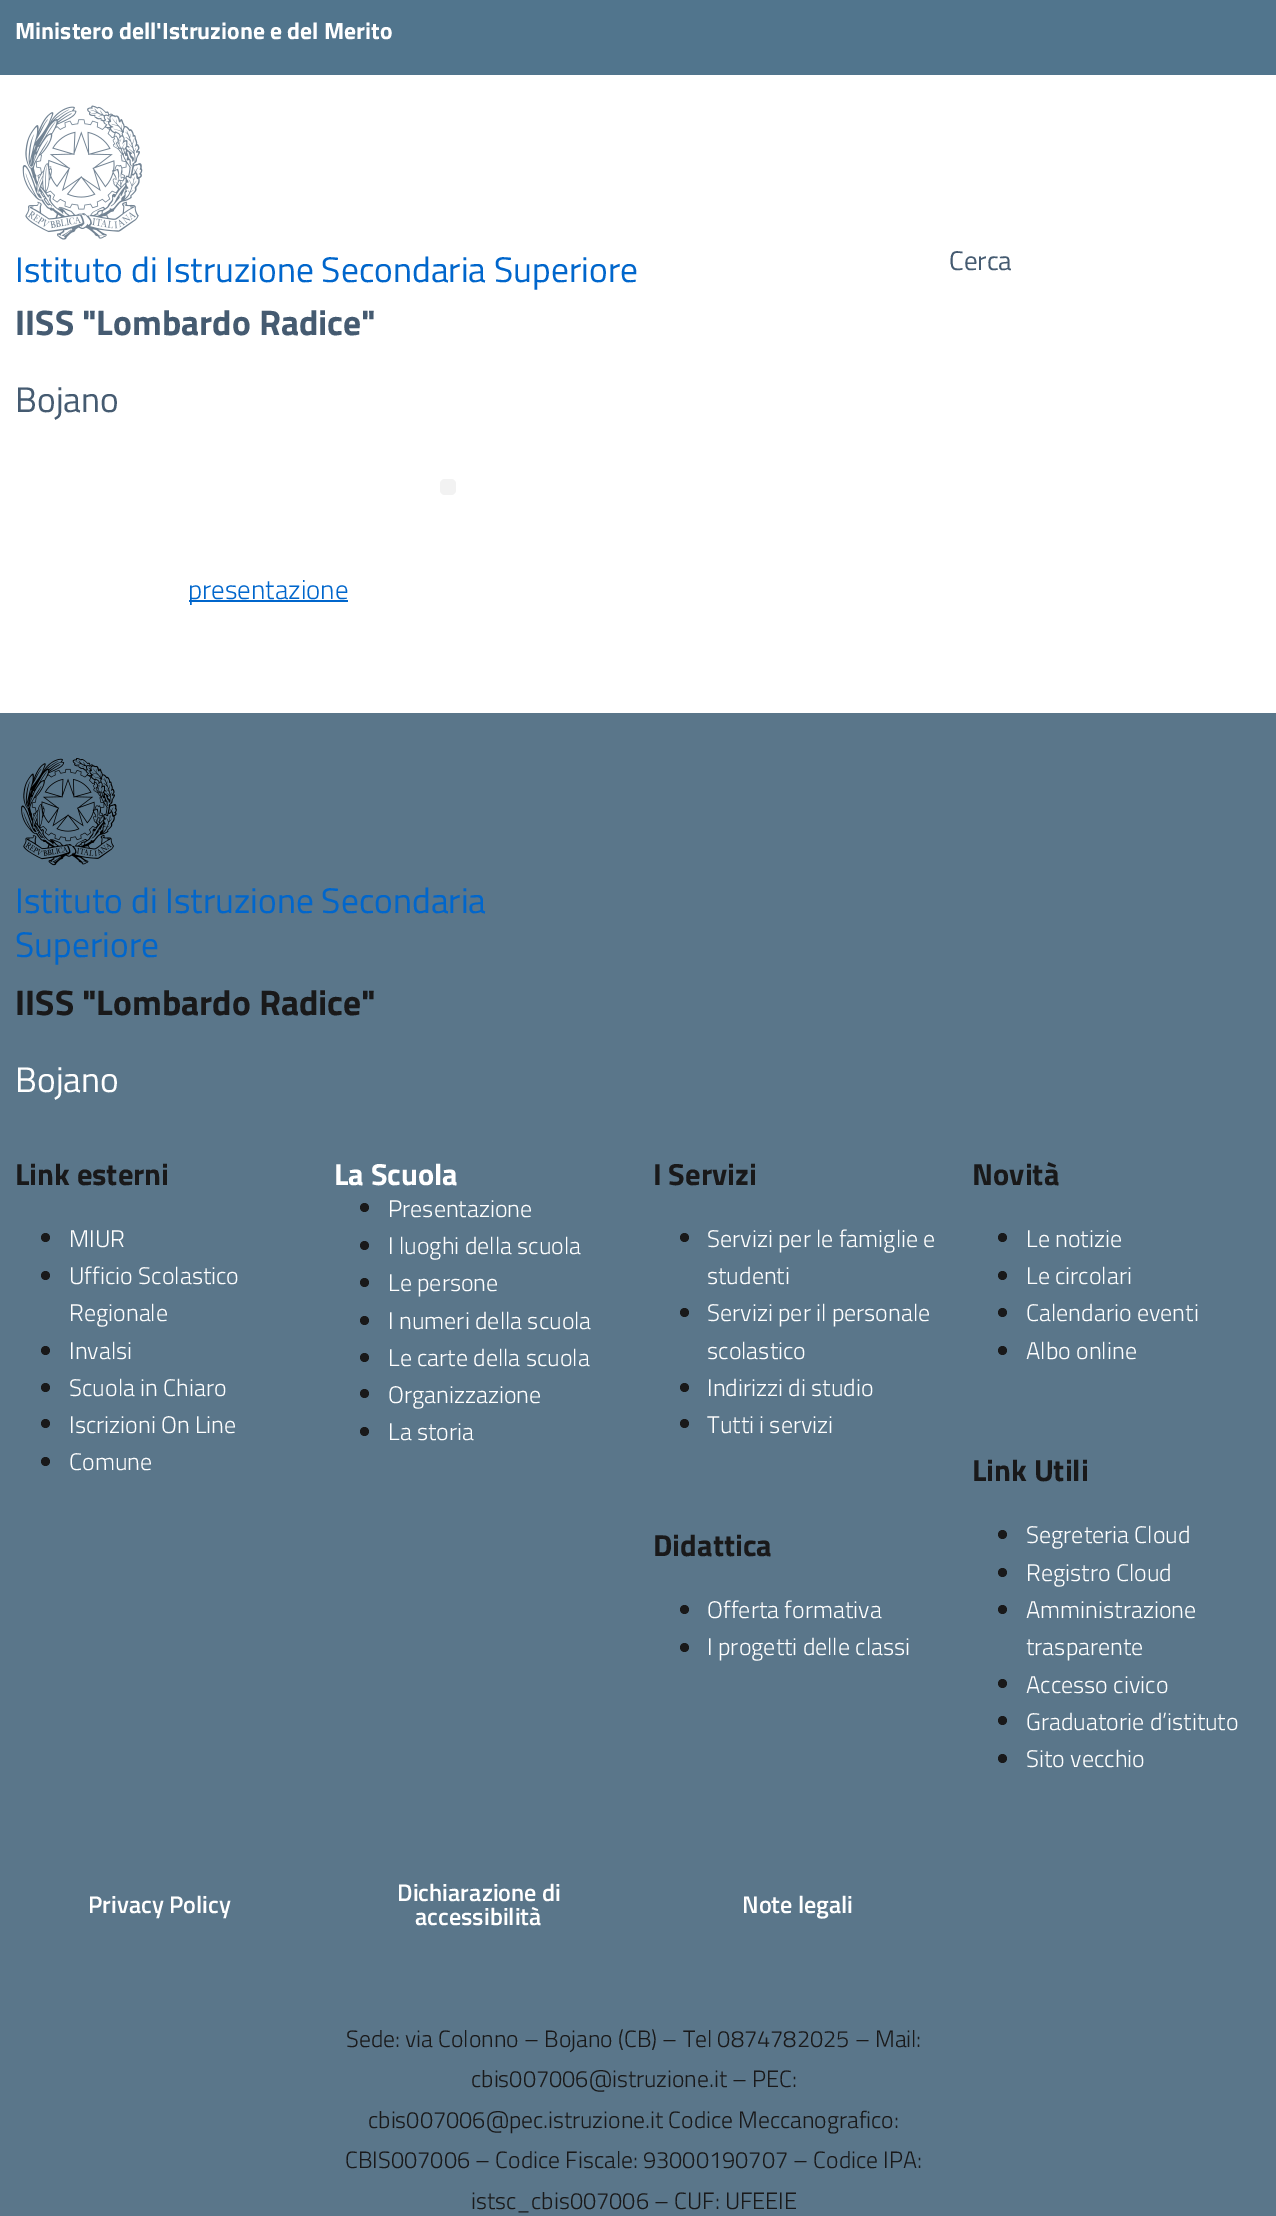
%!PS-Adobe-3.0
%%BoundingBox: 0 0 1276 2216
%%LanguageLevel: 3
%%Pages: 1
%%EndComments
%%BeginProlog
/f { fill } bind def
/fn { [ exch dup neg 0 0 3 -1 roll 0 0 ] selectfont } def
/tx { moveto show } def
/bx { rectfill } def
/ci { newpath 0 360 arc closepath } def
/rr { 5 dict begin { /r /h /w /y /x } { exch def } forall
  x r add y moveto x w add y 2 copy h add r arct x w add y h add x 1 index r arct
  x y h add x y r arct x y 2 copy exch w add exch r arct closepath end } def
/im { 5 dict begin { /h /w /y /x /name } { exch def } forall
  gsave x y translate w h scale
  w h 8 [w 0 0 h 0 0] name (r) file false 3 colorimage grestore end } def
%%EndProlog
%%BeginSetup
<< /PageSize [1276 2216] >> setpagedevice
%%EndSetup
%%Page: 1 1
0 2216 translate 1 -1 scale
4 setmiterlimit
1 setgray
0 0 1276 2216 bx
0.318 0.459 0.553 setrgbcolor
0 0 1276 75 bx
/TitilliumWeb-Bold 23.6 fn
1 setgray
(Ministero dell'Istruzione e del Merito) 15 39 tx
(image0.raw) 22 105 121 135 im
/TitilliumWeb-Regular 35.5 fn
0 0.4 0.8 setrgbcolor
(Istituto di Istruzione Secondaria Superiore) 15 282 tx
/TitilliumWeb-Bold 35.5 fn
0.271 0.357 0.443 setrgbcolor
(IISS "Lombardo Radice") 15 335 tx
/TitilliumWeb-Regular 35.5 fn
(Bojano) 15 412 tx
/TitilliumWeb-Regular 27 fn
(Cerca) 949 270 tx
0.949 setgray
440 479 16 16 5 rr f
0 0.4 0.8 setrgbcolor
189 600 159 2 bx
/TitilliumWeb-Light 27 fn
(presentazione) 188 599 tx
0.353 0.463 0.541 setrgbcolor
0 713 1276 1503 bx
(image1.raw) 21 758 96 108 im
/TitilliumWeb-Regular 35.5 fn
0 0.4 0.8 setrgbcolor
(Istituto di Istruzione Secondaria) 15 913 tx
(Superiore) 15 957 tx
/TitilliumWeb-Bold 35.5 fn
0.098 0.098 0.102 setrgbcolor
(IISS "Lombardo Radice") 15 1015 tx
/TitilliumWeb-Regular 35.5 fn
1 setgray
(Bojano) 15 1092 tx
/TitilliumWeb-Bold 30.5 fn
0.098 0.098 0.102 setrgbcolor
(Link esterni) 15 1185 tx
45.5 1237.5 4.5 ci f
/TitilliumWeb-Light 24 fn
1 setgray
(MIUR) 69 1247 tx
0.098 0.098 0.102 setrgbcolor
45.5 1275.5 4.5 ci f
1 setgray
(Ufficio Scolastico) 69 1284 tx
(Regionale) 69 1321 tx
0.098 0.098 0.102 setrgbcolor
45.5 1350.5 4.5 ci f
1 setgray
(Invalsi) 69 1359 tx
0.098 0.098 0.102 setrgbcolor
45.5 1387.5 4.5 ci f
1 setgray
(Scuola in Chiaro) 69 1396 tx
0.098 0.098 0.102 setrgbcolor
45.5 1423.5 4.5 ci f
1 setgray
(Iscrizioni On Line) 69 1433 tx
0.098 0.098 0.102 setrgbcolor
45.5 1461.5 4.5 ci f
1 setgray
(Comune) 69 1470 tx
/TitilliumWeb-Bold 30.5 fn
(La Scuola) 334 1185 tx
0.098 0.098 0.102 setrgbcolor
364.5 1207.5 4.5 ci f
/TitilliumWeb-Light 24 fn
1 setgray
(Presentazione) 388 1217 tx
0.098 0.098 0.102 setrgbcolor
364.5 1245.5 4.5 ci f
1 setgray
(I luoghi della scuola) 388 1254 tx
0.098 0.098 0.102 setrgbcolor
364.5 1282.5 4.5 ci f
1 setgray
(Le persone) 388 1291 tx
0.098 0.098 0.102 setrgbcolor
364.5 1320.5 4.5 ci f
1 setgray
(I numeri della scuola) 388 1329 tx
0.098 0.098 0.102 setrgbcolor
364.5 1357.5 4.5 ci f
1 setgray
(Le carte della scuola) 388 1366 tx
0.098 0.098 0.102 setrgbcolor
364.5 1393.5 4.5 ci f
1 setgray
(Organizzazione) 388 1403 tx
0.098 0.098 0.102 setrgbcolor
364.5 1431.5 4.5 ci f
1 setgray
(La storia) 388 1440 tx
/TitilliumWeb-Bold 30.5 fn
0.098 0.098 0.102 setrgbcolor
(I Servizi) 653 1185 tx
684.5 1237.5 4.5 ci f
/TitilliumWeb-Light 24 fn
1 setgray
(Servizi per le famiglie e) 707 1247 tx
(studenti) 707 1284 tx
0.098 0.098 0.102 setrgbcolor
684.5 1312.5 4.5 ci f
1 setgray
(Servizi per il personale) 707 1321 tx
(scolastico) 707 1359 tx
0.098 0.098 0.102 setrgbcolor
684.5 1387.5 4.5 ci f
1 setgray
(Indirizzi di studio) 707 1396 tx
0.098 0.098 0.102 setrgbcolor
684.5 1423.5 4.5 ci f
1 setgray
(Tutti i servizi) 707 1433 tx
/TitilliumWeb-Bold 30.5 fn
0.098 0.098 0.102 setrgbcolor
(Didattica) 653 1556 tx
684.5 1609.5 4.5 ci f
/TitilliumWeb-Light 24 fn
1 setgray
(Offerta formativa) 707 1618 tx
0.098 0.098 0.102 setrgbcolor
684.5 1647.5 4.5 ci f
1 setgray
(I progetti delle classi) 707 1655 tx
/TitilliumWeb-Bold 30.5 fn
0.098 0.098 0.102 setrgbcolor
(Novità) 972 1185 tx
1002.5 1237.5 4.5 ci f
/TitilliumWeb-Light 24 fn
1 setgray
(Le notizie) 1026 1247 tx
0.098 0.098 0.102 setrgbcolor
1002.5 1275.5 4.5 ci f
1 setgray
(Le circolari) 1026 1284 tx
0.098 0.098 0.102 setrgbcolor
1002.5 1312.5 4.5 ci f
1 setgray
(Calendario eventi) 1026 1321 tx
0.098 0.098 0.102 setrgbcolor
1002.5 1350.5 4.5 ci f
1 setgray
(Albo online) 1026 1359 tx
/TitilliumWeb-Bold 30.5 fn
0.098 0.098 0.102 setrgbcolor
(Link Utili) 972 1481 tx
1002.5 1534.5 4.5 ci f
/TitilliumWeb-Light 24 fn
1 setgray
(Segreteria Cloud) 1026 1543 tx
0.098 0.098 0.102 setrgbcolor
1002.5 1572.5 4.5 ci f
1 setgray
(Registro Cloud) 1026 1581 tx
0.098 0.098 0.102 setrgbcolor
1002.5 1609.5 4.5 ci f
1 setgray
(Amministrazione) 1026 1618 tx
(trasparente) 1026 1655 tx
0.098 0.098 0.102 setrgbcolor
1002.5 1683.5 4.5 ci f
1 setgray
(Accesso civico) 1026 1693 tx
0.098 0.098 0.102 setrgbcolor
1002.5 1720.5 4.5 ci f
1 setgray
(Graduatorie d’istituto) 1026 1730 tx
0.098 0.098 0.102 setrgbcolor
1002.5 1758.5 4.5 ci f
1 setgray
(Sito vecchio) 1026 1767 tx
/TitilliumWeb-SemiBold 24.25 fn
(Privacy Policy) 88 1913 tx
(Dichiarazione di) 397 1901 tx
(accessibilità) 415 1925 tx
(Note legali) 742 1913 tx
/TitilliumWeb-Light 23.6 fn
0.098 0.098 0.102 setrgbcolor
(Sede: via Colonno – Bojano \(CB\) – Tel 0874782025 – Mail:) 346 2047 tx
(cbis007006@istruzione.it – PEC:) 471 2087 tx
(cbis007006@pec.istruzione.it Codice Meccanografico:) 368 2128 tx
(CBIS007006 – Codice Fiscale: 93000190707 – Codice IPA:) 345 2168 tx
(istsc_cbis007006 – CUF: UFEEIE) 471 2209 tx
showpage
%%EOF
